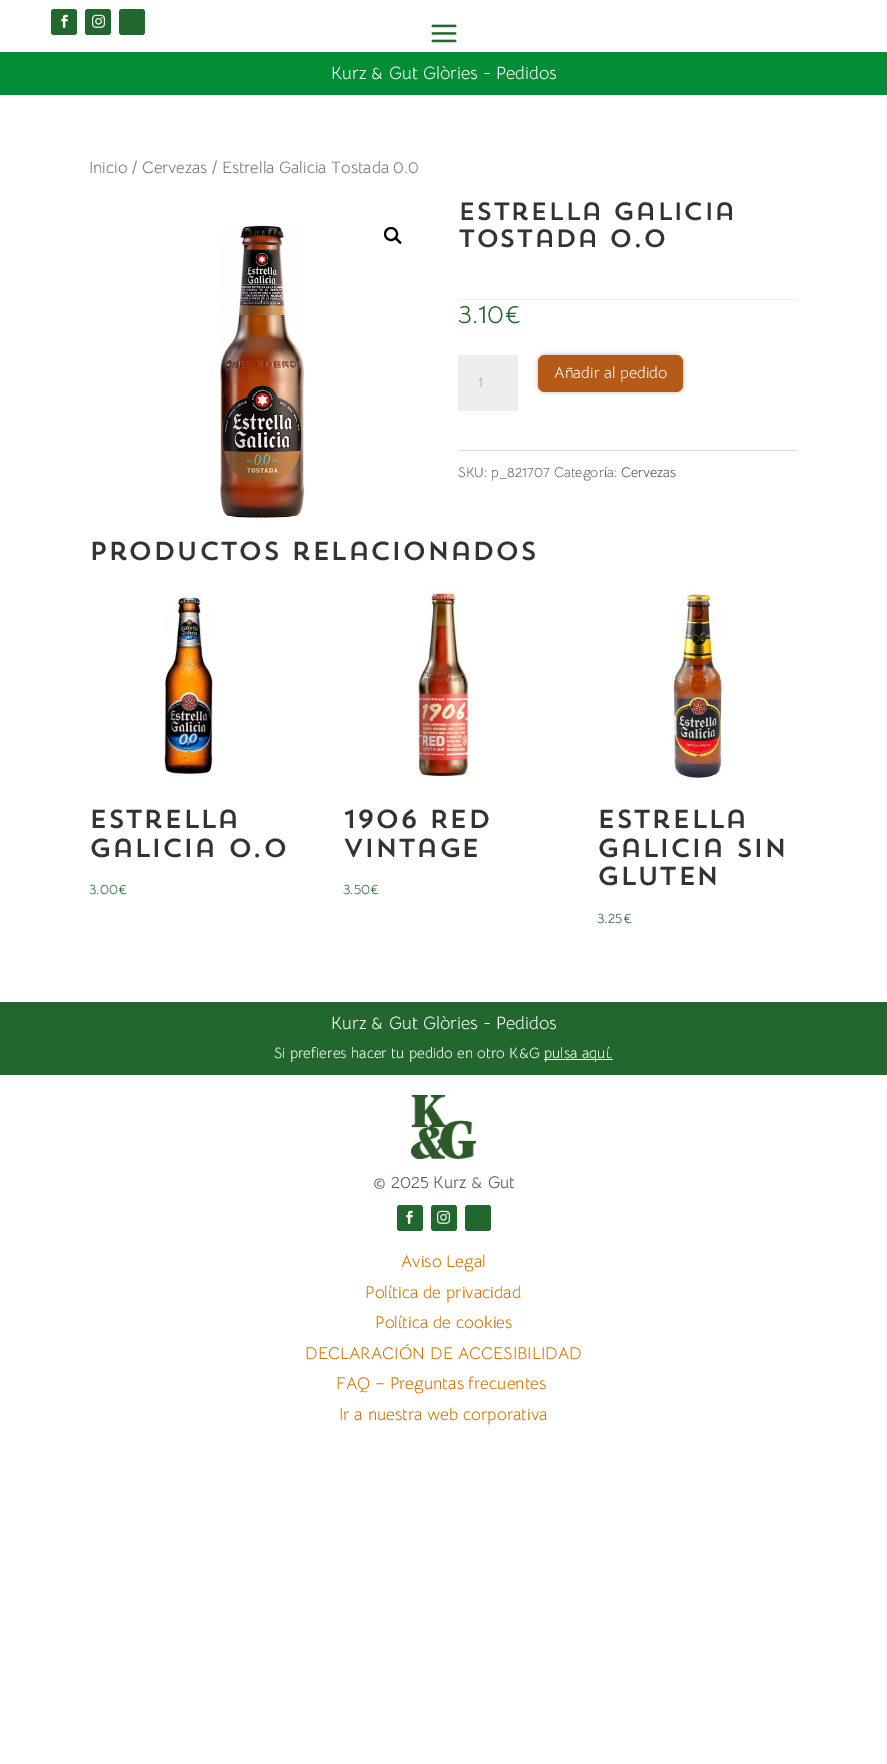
%!PS-Adobe-3.0
%%BoundingBox: 0 0 887 1764
%%LanguageLevel: 3
%%Pages: 1
%%EndComments
%%BeginProlog
/m { moveto } bind def
/c { curveto } bind def
/h { closepath } bind def
/f { fill } bind def
/S { stroke } bind def
/w { setlinewidth } bind def
/fn { [ exch dup neg 0 0 3 -1 roll 0 0 ] selectfont } def
/tx { moveto show } def
/bx { rectfill } def
/al { dup .setfillconstantalpha .setstrokeconstantalpha } def
/ci { newpath 0 360 arc closepath } def
/rr { 5 dict begin { /r /h /w /y /x } { exch def } forall
  x r add y moveto x w add y 2 copy h add r arct x w add y h add x 1 index r arct
  x y h add x y r arct x y 2 copy exch w add exch r arct closepath end } def
/sh { 12 dict begin { /a /b /q /h /w /y /x } { exch def } forall gsave /was 0 def
  9 -2 -9 { dup b mul 4 div /e exch def 1 sub .425 mul 2.718 exch exp 1 add a .99 .min exch div /now exch def
    1 1 now sub 1 was sub div sub al /was now def
    w h .min e 2 mul add 0 gt { x e sub y e sub w e 2 mul add h e 2 mul add
      q e add b .6 mul add w h .min 2 div e add .min 0 .max rr fill } if } for grestore end } def
/im { 5 dict begin { /h /w /y /x /name } { exch def } forall
  gsave x y translate w h scale
  w h 8 [w 0 0 h 0 0] name (r) file false 3 colorimage grestore end } def
%%EndProlog
%%BeginSetup
<< /PageSize [887 1764] /PageUsesTransparency true >> setpagedevice
%%EndSetup
%%Page: 1 1
0 .pushpdf14devicefilter
0 1764 translate 1 -1 scale
4 setmiterlimit
1 setgray
0 0 887 1764 bx
0.133 0.404 0.176 setrgbcolor
51 9 26 26 3 rr f
(image0.raw) 61 14 7 14 im
85 9 26 26 3 rr f
(image1.raw) 92 14 13 14 im
119 9 26 26 3 rr f
(image2.raw) 431 24 26 19 im
0 0.553 0.212 setrgbcolor
0 52 887 43 bx
/BellotaText-Regular 18 fn
1 setgray
(Kurz & Gut Glòries - Pedidos) 331 79 tx
/BellotaText-Regular 16.6 fn
0.463 setgray
(Inicio / Cervezas / Estrella Galicia Tostada 0.0) 89 173 tx
(image3.raw) 220 225 85 293 im
0 setgray
2 w
391 234 6 ci S
395.5 238 m 396.5 236.5 398.5 239.5 399 240 c 399.5 240.5 402.5 242.5 401 243.5 c 400 245 398 242 397.5 241.5 c 397 241 394.5 239 395.5 238 c h f
/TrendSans-ExtraLight 25 fn
0.2 setgray
(Estrella Galicia) 458 220 tx
(Tostada 0.0) 458 247 tx
0.933 setgray
458 299 340 1 bx
/BellotaText-Regular 26 fn
0.133 0.404 0.176 setrgbcolor
(3.10€) 458 323 tx
0.933 setgray
458 355 60 56 bx
/BellotaText-Regular 14 fn
0.6 setgray
(1) 478 387 tx
0.733 setgray
538 355 145 37 7 2.5 1 sh
0.71 0.353 0.09 setrgbcolor
538 355 145 37 7 rr f
/BellotaText-Regular 16 fn
1 setgray
(Añadir al pedido) 554 378 tx
0.855 setgray
458 450 340 1 bx
/BellotaText-Regular 14 fn
0.4 setgray
(SKU: p_821707 Categoría:) 458 477 tx
0.392 0.31 0.263 setrgbcolor
(Cervezas) 621 477 tx
/TrendSans-ExtraLight 26 fn
0.2 setgray
(Productos relacionados) 89 560 tx
(image4.raw) 164 595 54 183 im
(Estrella) 89 828 tx
(Galicia 0.0) 89 857 tx
/BellotaText-Regular 14 fn
0.133 0.404 0.176 setrgbcolor
(3.00€) 89 894 tx
(image5.raw) 416 585 56 193 im
/TrendSans-ExtraLight 26 fn
0.2 setgray
(1906 Red) 343 828 tx
(Vintage) 343 857 tx
/BellotaText-Regular 14 fn
0.133 0.404 0.176 setrgbcolor
(3.50€) 343 894 tx
(image6.raw) 671 591 55 187 im
/TrendSans-ExtraLight 26 fn
0.2 setgray
(Estrella) 597 828 tx
(Galicia Sin) 597 857 tx
(Gluten) 597 885 tx
/BellotaText-Regular 14 fn
0.133 0.404 0.176 setrgbcolor
(3.25€) 597 923 tx
0 1002 887 73 bx
/BellotaText-Regular 18 fn
1 setgray
(Kurz & Gut Glòries - Pedidos) 331 1029 tx
/BellotaText-Regular 15 fn
(Si prefieres hacer tu pedido en otro K&G) 274 1058 tx
544 1059 65 1 bx
(pulsa aquí.) 544 1058 tx
609 1059 4 1 bx
(image7.raw) 411 1095 65 64 im
/BellotaText-Regular 17 fn
0.392 0.31 0.263 setrgbcolor
(© 2025 Kurz & Gut) 373 1188 tx
0.133 0.404 0.176 setrgbcolor
397 1205 26 26 3 rr f
(image0.raw) 406 1210 7 14 im
431 1205 26 26 3 rr f
(image1.raw) 437 1210 13 14 im
465 1205 26 26 3 rr f
0.82 0.451 0 setrgbcolor
(Aviso Legal) 401 1267 tx
(Política de privacidad) 365 1298 tx
(Política de cookies) 375 1328 tx
(DECLARACIÓN DE ACCESIBILIDAD) 305 1359 tx
(FAQ – Preguntas frecuentes) 336 1389 tx
(Ir a nuestra web corporativa) 339 1420 tx
.poppdf14devicefilter showpage
%%EOF
